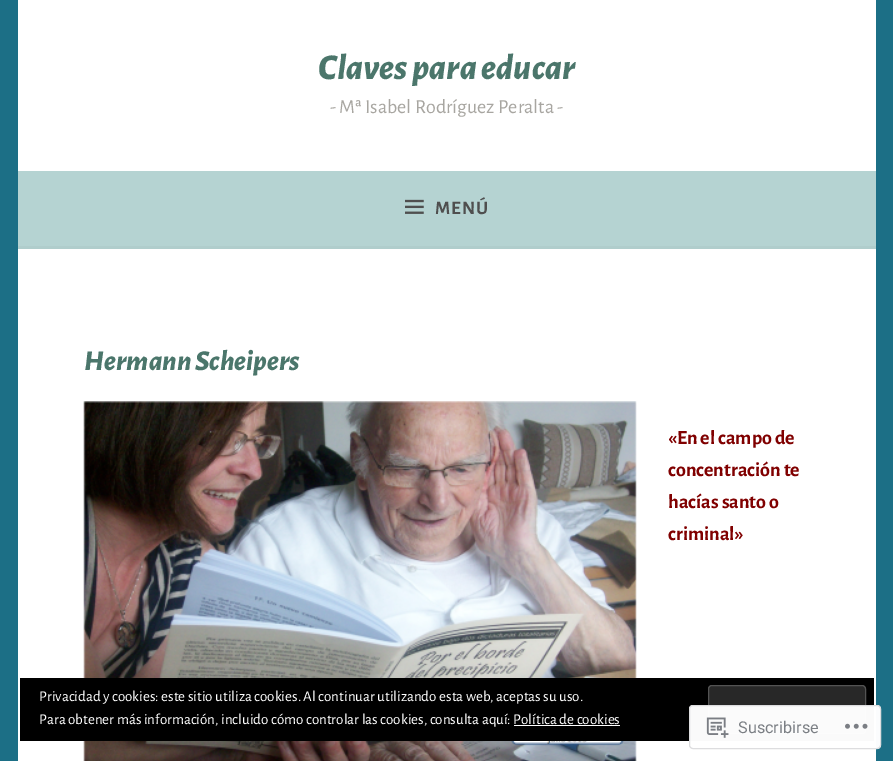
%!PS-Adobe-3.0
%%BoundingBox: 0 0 893 761
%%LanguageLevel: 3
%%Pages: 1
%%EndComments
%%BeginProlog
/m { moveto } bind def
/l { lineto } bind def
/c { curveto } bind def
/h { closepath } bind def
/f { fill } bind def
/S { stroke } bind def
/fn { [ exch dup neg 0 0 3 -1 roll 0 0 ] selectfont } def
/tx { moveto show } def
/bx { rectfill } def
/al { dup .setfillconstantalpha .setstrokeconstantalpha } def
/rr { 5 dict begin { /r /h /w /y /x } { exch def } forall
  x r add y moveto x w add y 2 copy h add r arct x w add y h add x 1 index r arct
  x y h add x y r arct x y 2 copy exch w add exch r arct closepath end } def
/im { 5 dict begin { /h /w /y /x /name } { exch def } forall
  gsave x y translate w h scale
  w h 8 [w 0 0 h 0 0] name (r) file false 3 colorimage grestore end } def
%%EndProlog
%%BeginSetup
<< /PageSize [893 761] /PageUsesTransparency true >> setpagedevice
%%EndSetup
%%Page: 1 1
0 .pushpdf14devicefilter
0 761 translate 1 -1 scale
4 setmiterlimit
0.11 0.435 0.525 setrgbcolor
0 0 893 761 bx
1 setgray
18 0 858 171 bx
/AlegreyaSans-ExtraBoldItalic 36.25 fn
0.294 0.463 0.42 setrgbcolor
(Claves para educar) 318 79 tx
/AlegreyaSans-Regular 20 fn
0.659 0.651 0.631 setrgbcolor
(- Mª Isabel Rodríguez Peralta -) 330 113 tx
0.71 0.827 0.824 setrgbcolor
18 171 858 75 bx
0.69 0.804 0.8 setrgbcolor
18 246 858 3 bx
(image0.raw) 405 199 19 15 im
/AlegreyaSans-Bold 19 fn
0.31 setgray
435 214 m 1 0 (MENÚ) ashow
1 setgray
18 249 858 512 bx
/AlegreyaSans-ExtraBoldItalic 28.75 fn
0.294 0.463 0.42 setrgbcolor
(Hermann Scheipers) 84 370 tx
(image1.raw) 83 401 554 360 im
/AlegreyaSans-Bold 20 fn
0.502 0 0 setrgbcolor
(«En el campo de) 668 444 tx
(concentración te) 668 476 tx
(hacías santo o) 668 508 tx
(criminal») 668 540 tx
0 setgray
20 678 854 63 bx
/AlegreyaSans-Regular 15 fn
1 setgray
(Privacidad y cookies: este sitio utiliza cookies. Al continuar utilizando esta web, aceptas su uso.) 39 701 tx
0.157 setgray
708 685 158 49 4 rr f
0.141 setgray
709 728 m 709 730 l 709 732 710 733 712 733 c 862 733 l 864 733 865 732 865 730 c 865 728 l 865 729 864 730 862 730 c 711 730 l 710 730 709 729 709 728 c h f
0.325 setgray
708.5 685.5 157 48 3.5 rr S
1 setgray
(Para obtener más información, incluido cómo controlar las cookies, consulta aquí: Política de cookies) 39 724 tx
514 725 106 1 bx
0.98 al
689 705 192 44 4 rr f
0.863 0.863 0.871 setrgbcolor
689.5 705.5 191 43 3.5 rr S
1 al
(image2.raw) 706 717 23 21 im
/Roboto-Regular 16.25 fn
0.482 0.498 0.518 setrgbcolor
(Suscribirse) 738 733 tx
(image3.raw) 845 723 23 6 im
.poppdf14devicefilter showpage
%%EOF
